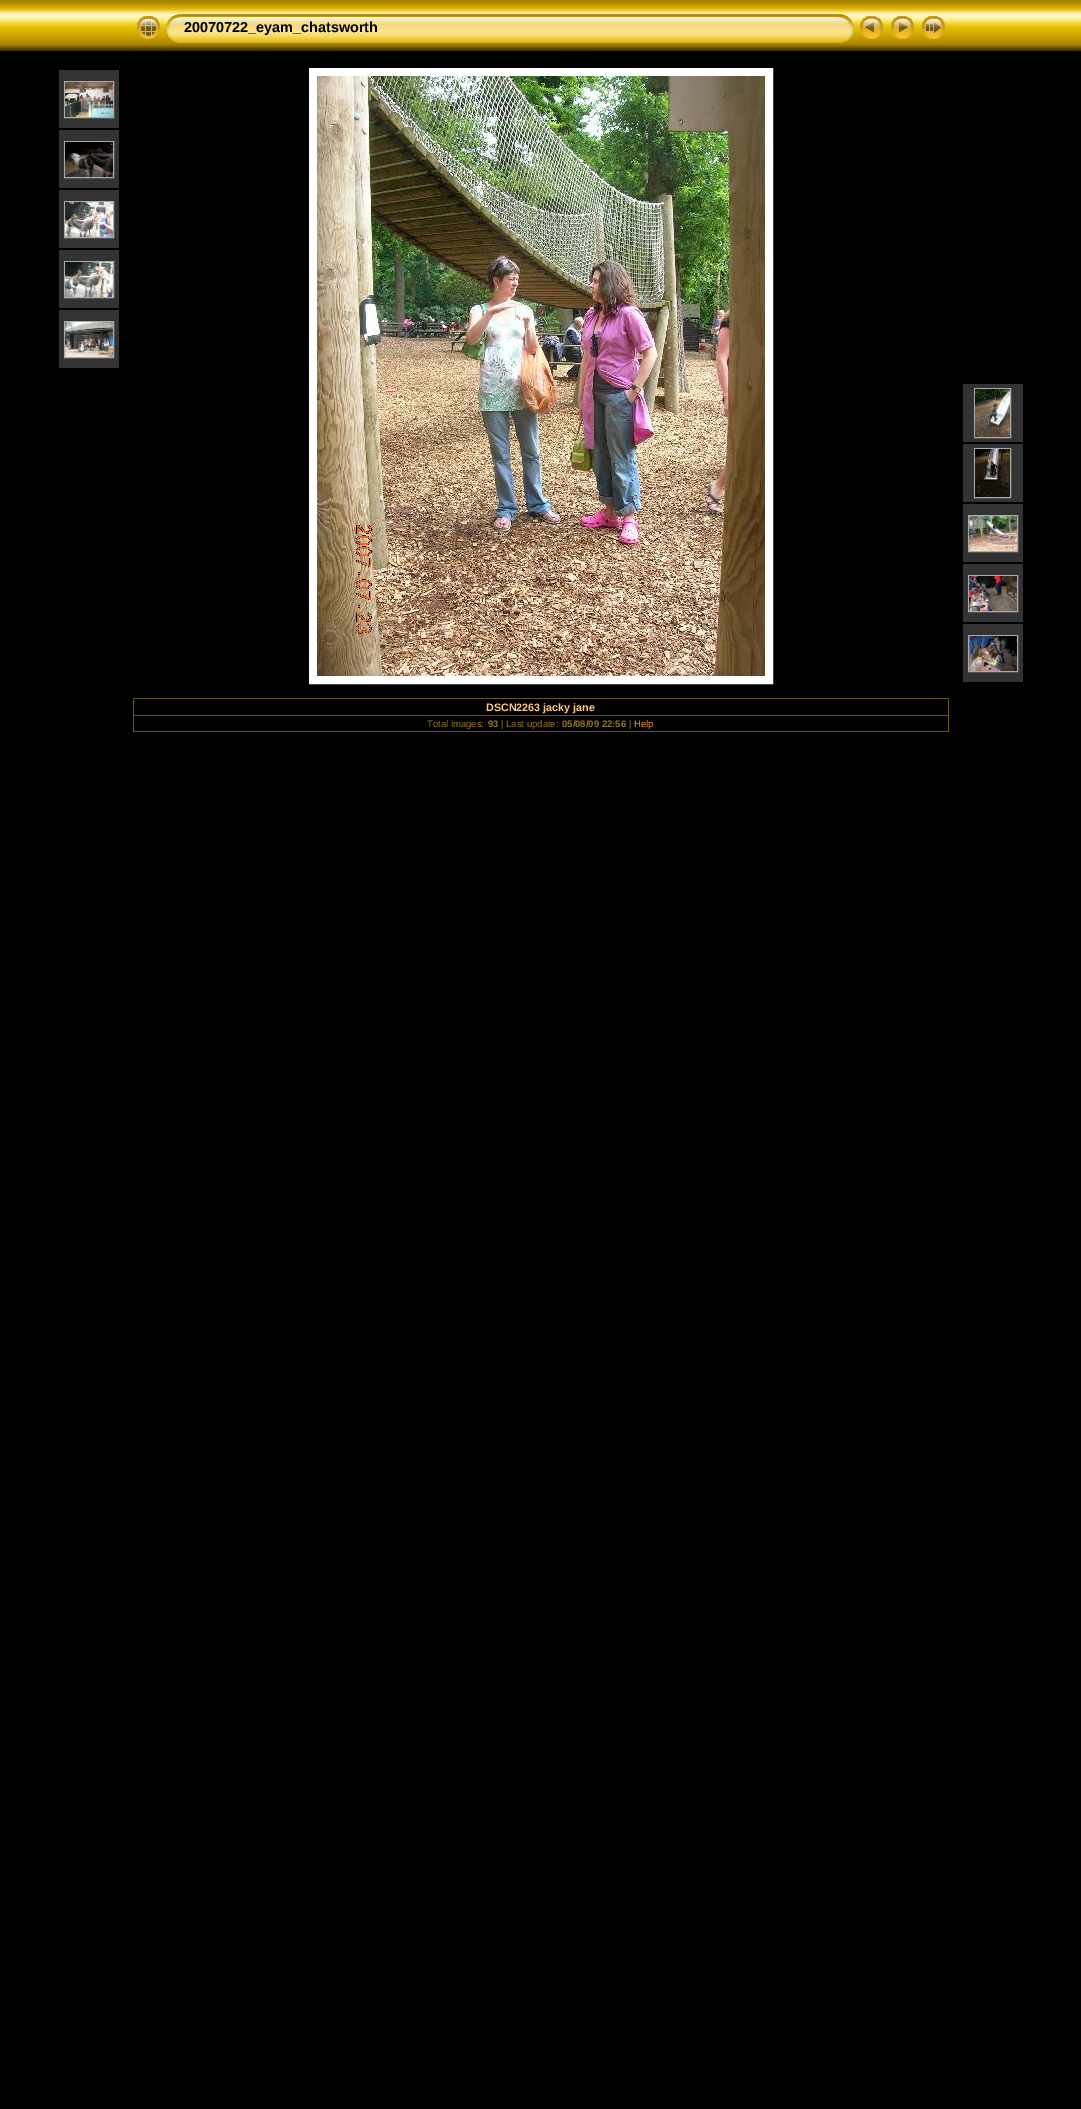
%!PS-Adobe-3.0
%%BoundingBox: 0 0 1081 2109
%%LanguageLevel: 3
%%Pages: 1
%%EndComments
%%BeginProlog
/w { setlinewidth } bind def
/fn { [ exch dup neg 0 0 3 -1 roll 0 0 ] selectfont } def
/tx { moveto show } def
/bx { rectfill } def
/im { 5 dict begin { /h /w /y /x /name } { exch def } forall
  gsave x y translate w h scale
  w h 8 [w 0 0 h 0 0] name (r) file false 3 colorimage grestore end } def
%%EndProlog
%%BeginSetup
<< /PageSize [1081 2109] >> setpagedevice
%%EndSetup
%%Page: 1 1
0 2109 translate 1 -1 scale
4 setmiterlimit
0 setgray
0 0 1081 2109 bx
(image0.raw) 0 0 1081 51 im
(image1.raw) 136 16 24 23 im
(image2.raw) 166 14 18 29 im
(image3.raw) 184 14 652 29 im
/LiberationSans-Bold 14.4 fn
(20070722_eyam_chatsworth) 184 32 tx
(image4.raw) 836 14 18 29 im
(image5.raw) 859 16 24 23 im
(image6.raw) 890 16 24 23 im
(image7.raw) 921 16 24 23 im
0.2 setgray
59 70 60 58 bx
0.667 setgray
64.5 81.5 49 36 rectstroke
(image8.raw) 65 82 48 35 im
0.2 setgray
59 130 60 58 bx
0.667 setgray
64.5 141.5 49 36 rectstroke
(image9.raw) 65 142 48 35 im
0.2 setgray
59 190 60 58 bx
0.667 setgray
64.5 201.5 49 36 rectstroke
(image10.raw) 65 202 48 35 im
0.2 setgray
59 250 60 58 bx
0.667 setgray
64.5 261.5 49 36 rectstroke
(image11.raw) 65 262 48 35 im
0.2 setgray
59 310 60 58 bx
0.667 setgray
64.5 321.5 49 36 rectstroke
(image12.raw) 65 322 48 35 im
1 setgray
8 w
313 72 456 608 rectstroke
(image13.raw) 317 76 448 600 im
0.2 setgray
963 384 60 58 bx
0.667 setgray
1 w
974.5 388.5 36 49 rectstroke
(image14.raw) 975 389 35 48 im
0.2 setgray
963 444 60 58 bx
0.667 setgray
974.5 448.5 36 49 rectstroke
(image15.raw) 975 449 35 48 im
0.2 setgray
963 504 60 58 bx
0.667 setgray
968.5 515.5 49 36 rectstroke
(image16.raw) 969 516 48 35 im
0.2 setgray
963 564 60 58 bx
0.667 setgray
968.5 575.5 49 36 rectstroke
(image17.raw) 969 576 48 35 im
0.2 setgray
963 624 60 58 bx
0.667 setgray
968.5 635.5 49 36 rectstroke
(image18.raw) 969 636 48 35 im
0.4 0.333 0.133 setrgbcolor
133 698 816 1 bx
948 698 1 34 bx
133 731 816 1 bx
133 698 1 34 bx
/LiberationSans-Bold 10.75 fn
1 0.8 0.533 setrgbcolor
(DSCN2263 jacky jane) 486 711 tx
0.4 0.333 0.133 setrgbcolor
133 715 816 1 bx
/LiberationSans-Regular 9.5 fn
0.6 0.467 0.133 setrgbcolor
(Total images:) 427 727 tx
/LiberationSans-Bold 9.5 fn
(93) 488 727 tx
/LiberationSans-Regular 9.5 fn
(| Last update:) 501 727 tx
/LiberationSans-Bold 9.5 fn
(05/08/09 22:56) 562 727 tx
/LiberationSans-Regular 9.5 fn
(|) 629 727 tx
1 0.6 0 setrgbcolor
(Help) 634 727 tx
showpage
%%EOF
